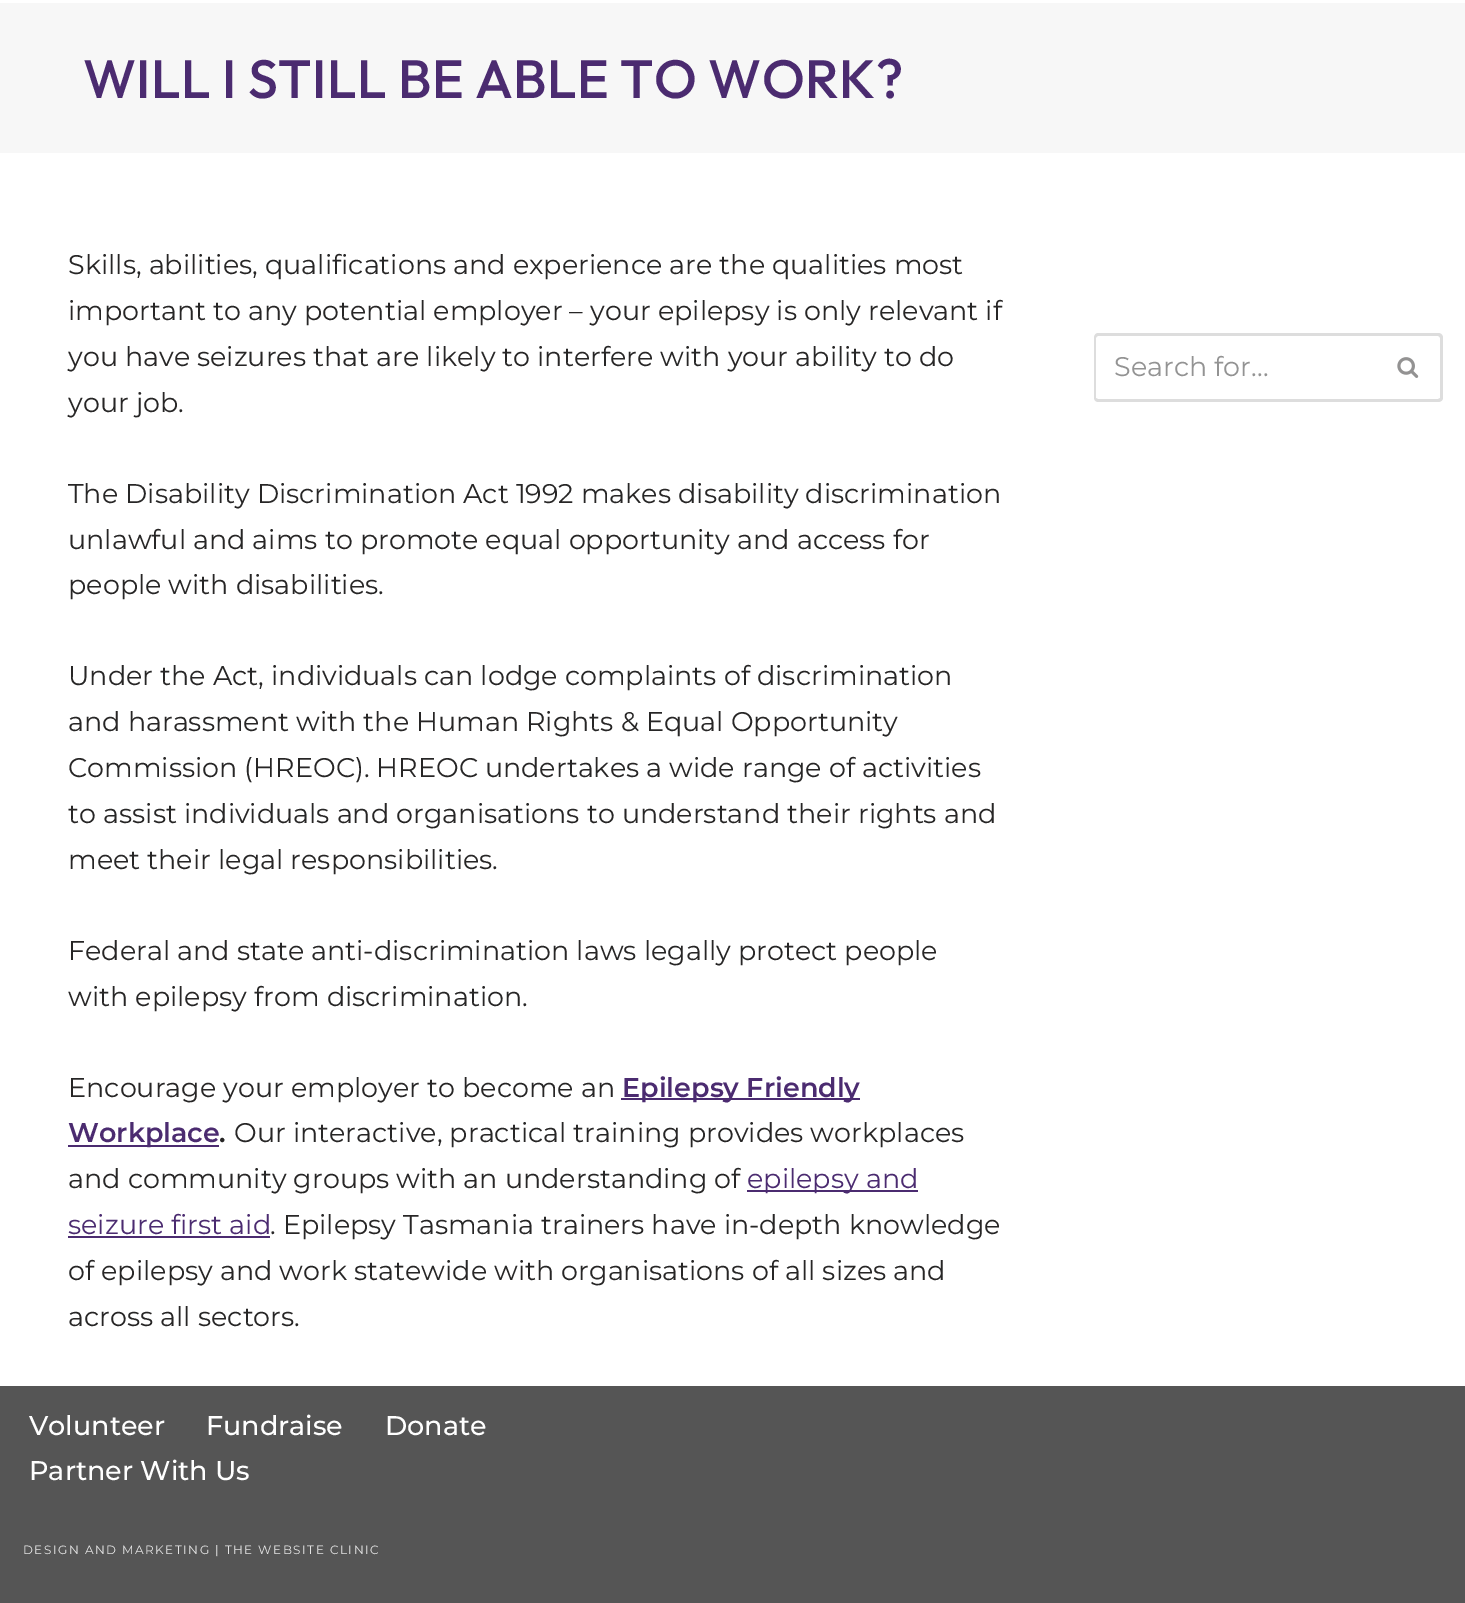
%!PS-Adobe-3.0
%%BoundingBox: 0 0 1465 1603
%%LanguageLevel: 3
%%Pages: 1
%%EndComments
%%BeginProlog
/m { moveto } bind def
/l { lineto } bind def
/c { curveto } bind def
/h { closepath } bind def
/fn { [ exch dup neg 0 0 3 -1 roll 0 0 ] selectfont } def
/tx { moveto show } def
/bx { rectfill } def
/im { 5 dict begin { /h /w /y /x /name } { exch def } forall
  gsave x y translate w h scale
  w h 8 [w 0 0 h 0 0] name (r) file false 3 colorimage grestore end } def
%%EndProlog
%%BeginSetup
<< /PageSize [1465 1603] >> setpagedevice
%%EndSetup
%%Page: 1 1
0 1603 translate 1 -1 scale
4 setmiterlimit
1 setgray
0 0 1465 1603 bx
0.969 setgray
0 3 1465 150 bx
/Outfit-Medium 54 fn
0.294 0.169 0.439 setrgbcolor
83 98 m 0.3 0 (WILL I STILL BE ABLE TO WORK?) ashow
/Montserrat-Regular 27 fn
0.153 0.149 0.149 setrgbcolor
(Skills, abilities, qualifications and experience are the qualities most) 68 274 tx
(important to any potential employer – your epilepsy is only relevant if) 68 320 tx
(you have seizures that are likely to interfere with your ability to do) 68 366 tx
(your job.) 68 412 tx
(The Disability Discrimination Act 1992 makes disability discrimination) 68 503 tx
(unlawful and aims to promote equal opportunity and access for) 68 549 tx
(people with disabilities.) 68 594 tx
(Under the Act, individuals can lodge complaints of discrimination) 68 685 tx
(and harassment with the Human Rights & Equal Opportunity) 68 731 tx
(Commission \(HREOC\). HREOC undertakes a wide range of activities) 68 777 tx
(to assist individuals and organisations to understand their rights and) 68 823 tx
(meet their legal responsibilities.) 68 869 tx
(Federal and state anti-discrimination laws legally protect people) 68 960 tx
(with epilepsy from discrimination.) 68 1006 tx
(Encourage your employer to become an) 68 1097 tx
0.294 0.169 0.439 setrgbcolor
621 1098 239 2 bx
/Montserrat-SemiBold 27 fn
(Epilepsy Friendly) 622 1097 tx
68 1145 151 2 bx
(Workplace) 68 1142 tx
0.153 0.149 0.149 setrgbcolor
(.) 219 1142 tx
/Montserrat-Regular 27 fn
(Our interactive, practical training provides workplaces) 234 1142 tx
(and community groups with an understanding of) 68 1188 tx
0.294 0.169 0.439 setrgbcolor
747 1190 171 2 bx
(epilepsy and) 747 1188 tx
(seizure first aid) 68 1234 tx
0.153 0.149 0.149 setrgbcolor
(. Epilepsy Tasmania trainers have in-depth knowledge) 270 1234 tx
0.294 0.169 0.439 setrgbcolor
68 1236 202 2 bx
0.153 0.149 0.149 setrgbcolor
(of epilepsy and work statewide with organisations of all sizes and) 68 1280 tx
(across all sectors.) 68 1326 tx
0.867 setgray
1098 333 m 1376 333 l 1376 402 l 1098 402 l 1096 402 1094 400 1094 398 c 1094 338 l 1094 335 1096 333 1098 333 c h 1098 336 m 1376 336 l 1376 399 l 1098 399 l 1097 399 1096 398 1096 398 c 1096 338 l 1096 337 1097 336 1098 336 c h eofill
0.576 setgray
(Search for...) 1114 376 tx
0.867 setgray
1376 333 m 1438 333 l 1441 333 1443 335 1443 338 c 1443 398 l 1443 400 1441 402 1438 402 c 1376 402 l h 1376 336 m 1438 336 l 1439 336 1440 337 1440 338 c 1440 398 l 1440 398 1439 399 1438 399 c 1376 399 l h eofill
(image0.raw) 1397 357 22 21 im
0.333 setgray
0 1386 1465 217 bx
/Montserrat-Medium 27 fn
1 setgray
(Volunteer) 29 1435 tx
(Fundraise) 206 1435 tx
(Donate) 385 1435 tx
(Partner With Us) 29 1480 tx
/Montserrat-Regular 12 fn
0.898 setgray
23 1554 m 1.5 0 (DESIGN AND MARKETING | THE WEBSITE CLINIC) ashow
showpage
%%EOF
